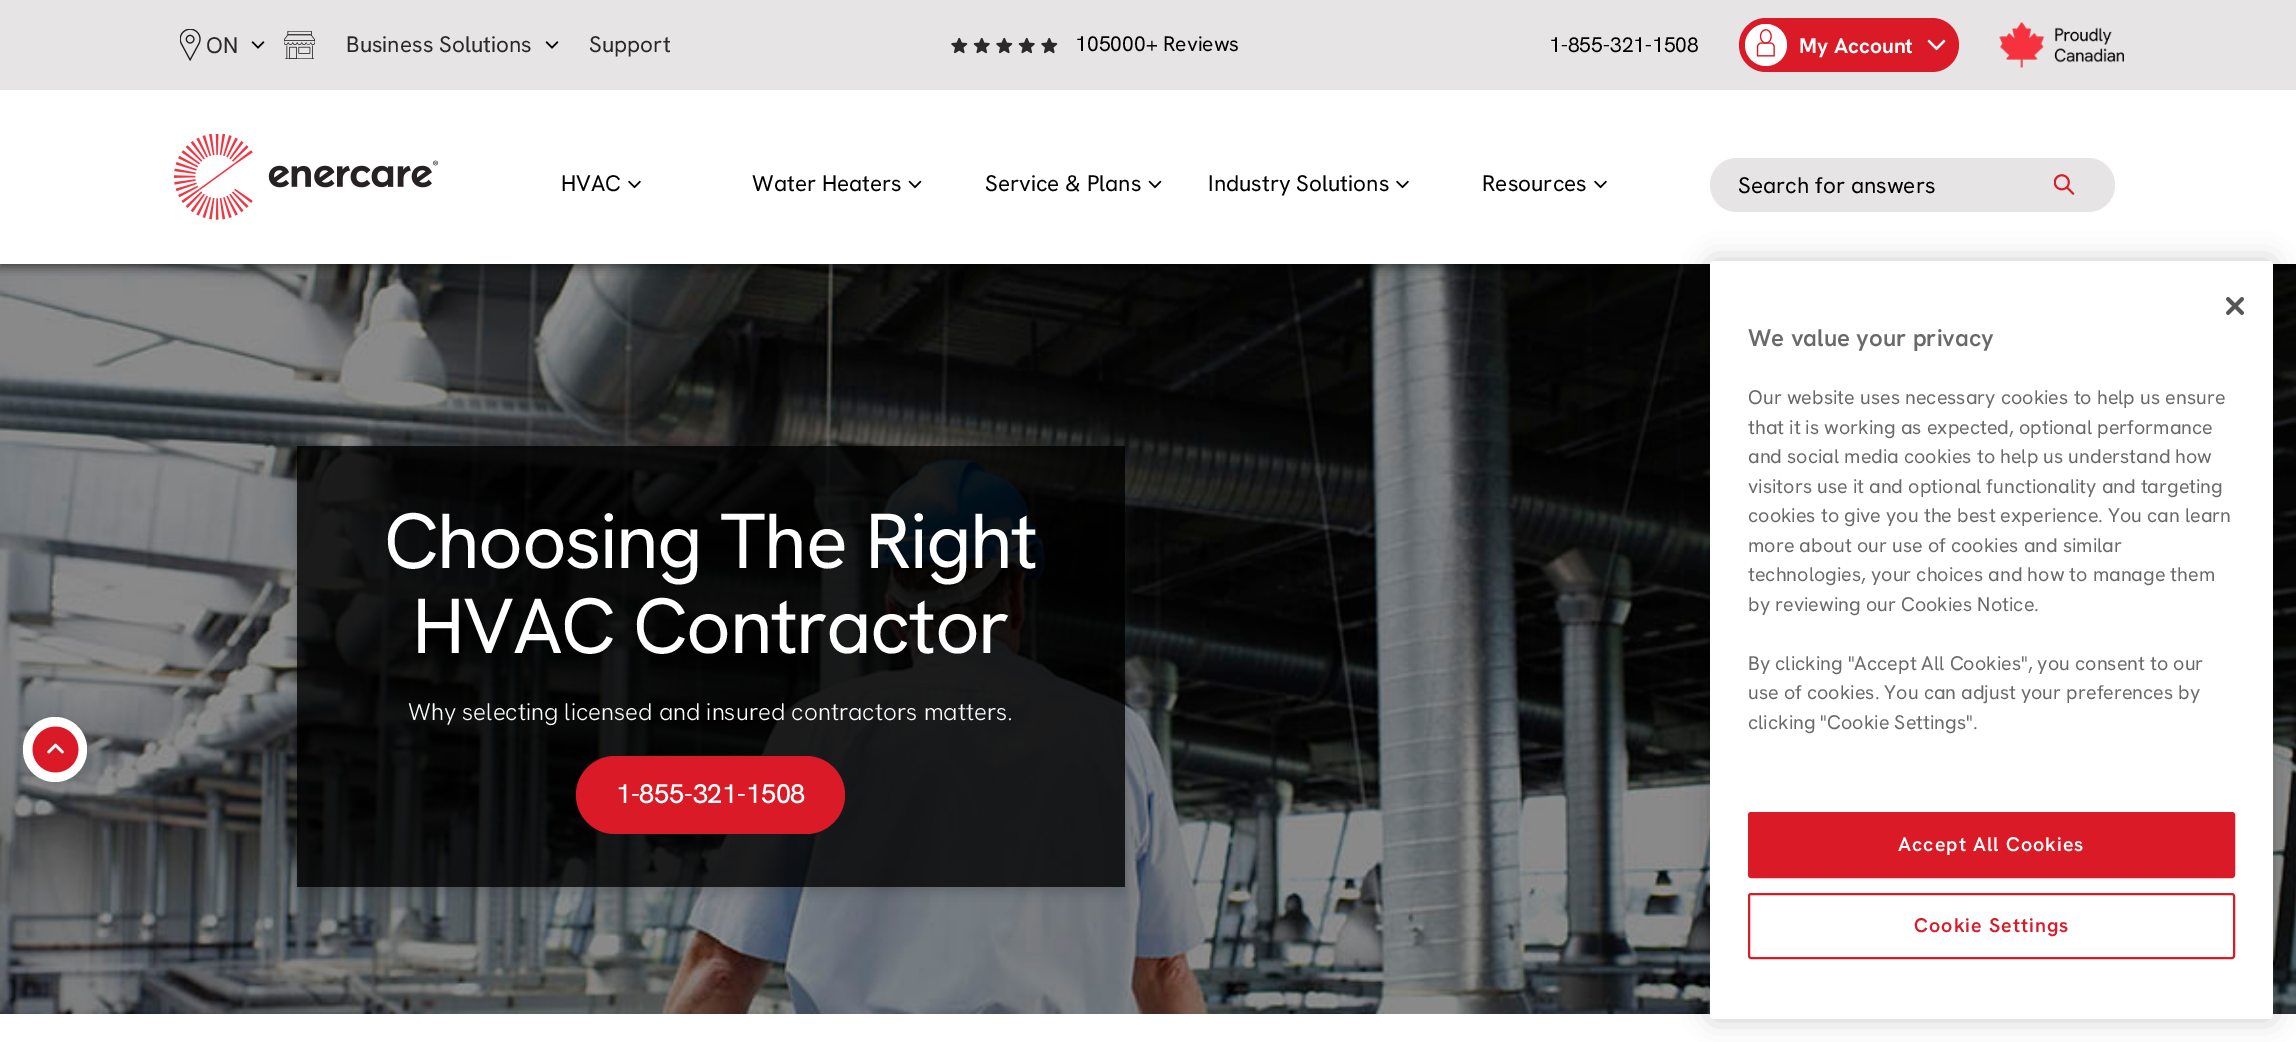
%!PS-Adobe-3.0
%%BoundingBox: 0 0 2296 1042
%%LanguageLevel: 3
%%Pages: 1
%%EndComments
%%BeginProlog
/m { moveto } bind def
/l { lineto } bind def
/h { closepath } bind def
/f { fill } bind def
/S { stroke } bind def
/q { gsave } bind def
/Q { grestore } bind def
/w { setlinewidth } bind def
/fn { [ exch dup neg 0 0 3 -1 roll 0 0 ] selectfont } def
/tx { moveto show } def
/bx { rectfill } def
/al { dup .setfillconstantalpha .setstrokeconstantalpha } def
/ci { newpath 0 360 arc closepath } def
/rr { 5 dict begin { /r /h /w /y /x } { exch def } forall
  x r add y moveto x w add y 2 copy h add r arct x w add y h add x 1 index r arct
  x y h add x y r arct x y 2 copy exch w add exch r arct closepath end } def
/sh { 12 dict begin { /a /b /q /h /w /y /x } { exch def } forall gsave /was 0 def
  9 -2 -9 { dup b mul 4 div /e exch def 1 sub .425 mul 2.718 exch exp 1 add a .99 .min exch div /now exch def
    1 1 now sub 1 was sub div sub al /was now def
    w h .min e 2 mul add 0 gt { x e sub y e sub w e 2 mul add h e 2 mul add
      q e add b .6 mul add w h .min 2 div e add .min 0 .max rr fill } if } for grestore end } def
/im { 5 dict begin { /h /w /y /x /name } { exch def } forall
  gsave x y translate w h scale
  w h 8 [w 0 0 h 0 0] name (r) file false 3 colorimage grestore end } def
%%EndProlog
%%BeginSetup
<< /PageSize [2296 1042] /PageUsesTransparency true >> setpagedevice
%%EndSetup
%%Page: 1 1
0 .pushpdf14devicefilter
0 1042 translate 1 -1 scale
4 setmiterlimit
1 setgray
0 0 2296 1042 bx
(image13.raw) 0 264 2296 750 im
0 setgray
23 720 64 65 32 5.5 0.1 sh
1 setgray
23 717 64 65 32 rr f
(image0.raw) 32 726 47 47 im
q
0 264 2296 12 rectclip
0 setgray
0 3 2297 264 0 5 0.5 sh
Q
0.902 0.894 0.894 setrgbcolor
0 0 2296 90 bx
(image1.raw) 180 29 21 32 im
/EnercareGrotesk-Regular 22.5 fn
0.161 0.161 0.173 setrgbcolor
(ON) 206 53 tx
(image2.raw) 251 41 14 8 im
(image3.raw) 284 31 31 28 im
(Business Solutions) 346 52 tx
(image2.raw) 545 41 14 8 im
(Support) 589 52 tx
(image4.raw) 951 37 17 17 im
(image5.raw) 973 37 17 17 im
(image4.raw) 996 37 17 17 im
(image5.raw) 1018 37 17 17 im
(image4.raw) 1041 37 17 17 im
/EnercareGrotesk-Regular 21 fn
0 setgray
(105000+ Reviews) 1075 51 tx
(1-855-321-1508) 1549 52 tx
0.855 0.106 0.153 setrgbcolor
1739 18 220 54 27 rr f
1 setgray
1766 45 21 ci f
(image6.raw) 1748 24 28 33 im
/EnercareGrotesk-Bold 21 fn
(My Account) 1799 53 tx
(image7.raw) 1927 39 19 12 im
(image8.raw) 1999 22 125 46 im
(image9.raw) 174 134 264 86 im
/EnercareGrotesk-Regular 22.5 fn
0 setgray
(HVAC) 561 191 tx
(image10.raw) 628 180 13 9 im
(Water Heaters) 752 191 tx
(image11.raw) 908 180 14 9 im
(Service & Plans) 985 191 tx
(image11.raw) 1148 180 14 9 im
(Industry Solutions) 1208 191 tx
(image10.raw) 1396 180 13 9 im
(Resources) 1482 191 tx
(image10.raw) 1594 180 13 9 im
0.902 0.894 0.894 setrgbcolor
1710 158 405 54 27 rr f
(image12.raw) 2054 174 21 21 im
0 setgray
(Search for answers) 1738 193 tx
q
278 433 m 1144 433 l 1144 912 l 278 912 l h 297 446 m 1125 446 l 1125 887 l 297 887 l h eoclip newpath
0.22 0.239 0.263 setrgbcolor
297 452 828 441 0 6 0.3 sh
Q
0.8 al
297 446 828 441 bx
/EnercareGrotesk-Regular 78 fn
1 al
1 setgray
384 568 m -1.6 0 (Choosing The Right) ashow
412 653 m -1.6 0 (HVAC Contractor) ashow
/EnercareGrotesk-Light 24 fn
(Why selecting licensed and insured contractors matters.) 408 720 tx
0.855 0.106 0.153 setrgbcolor
576 756 269 78 39 rr f
/EnercareGrotesk-Medium 27 fn
1 setgray
616 803 m -0.25 0 (1-855-321-1508) ashow
0 setgray
1710 261 563 758 4 13.5 0.2 sh
1 setgray
1710 261 563 758 4 rr f
(image14.raw) 2226 297 18 18 im
/EnercareGrotesk-SemiBold 24 fn
0.412 setgray
(We value your privacy) 1748 346 tx
/EnercareGrotesk-Regular 19.7 fn
(Our website uses necessary cookies to help us ensure) 1748 404 tx
(that it is working as expected, optional performance) 1748 434 tx
(and social media cookies to help us understand how) 1748 463 tx
(visitors use it and optional functionality and targeting) 1748 493 tx
(cookies to give you the best experience. You can learn) 1748 522 tx
(more about our use of cookies and similar) 1748 552 tx
(technologies, your choices and how to manage them) 1748 581 tx
(by reviewing our Cookies Notice.) 1748 611 tx
(By clicking "Accept All Cookies", you consent to our) 1748 670 tx
(use of cookies. You can adjust your preferences by) 1748 699 tx
(clicking "Cookie Settings".) 1748 729 tx
0.855 0.106 0.153 setrgbcolor
1749 813 485 64 2 rr q f Q
2 w
S
/EnercareGrotesk-SemiBold 19.7 fn
1 setgray
1898 851 m 1 0 (Accept All Cookies) ashow
0.855 0.106 0.153 setrgbcolor
1749 894 485 64 2 rr S
1914 932 m 1 0 (Cookie Settings) ashow
.poppdf14devicefilter showpage
%%EOF
